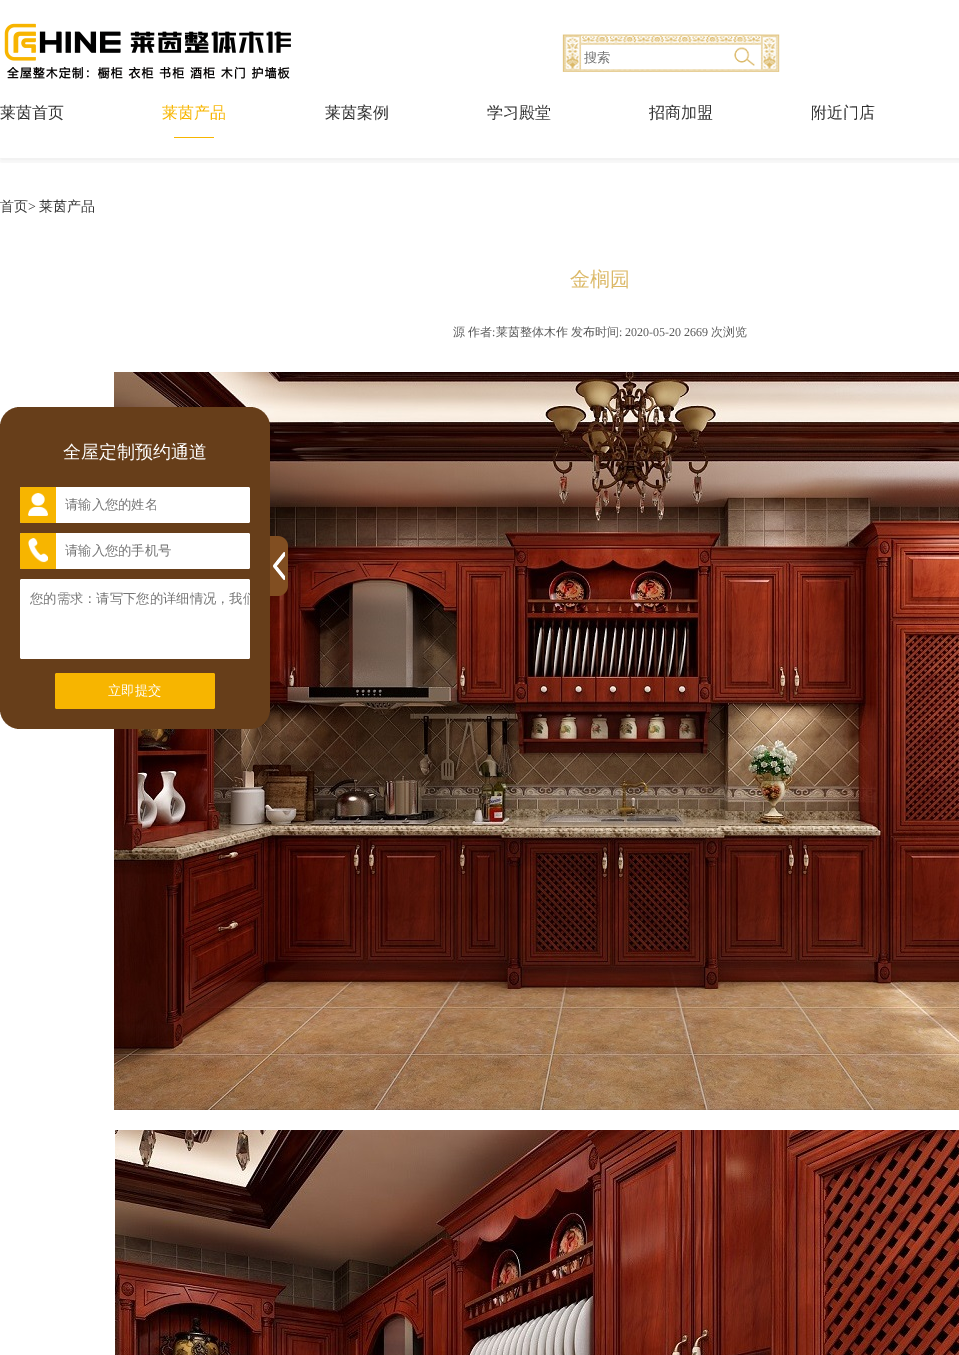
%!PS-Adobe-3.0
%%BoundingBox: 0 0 959 1355
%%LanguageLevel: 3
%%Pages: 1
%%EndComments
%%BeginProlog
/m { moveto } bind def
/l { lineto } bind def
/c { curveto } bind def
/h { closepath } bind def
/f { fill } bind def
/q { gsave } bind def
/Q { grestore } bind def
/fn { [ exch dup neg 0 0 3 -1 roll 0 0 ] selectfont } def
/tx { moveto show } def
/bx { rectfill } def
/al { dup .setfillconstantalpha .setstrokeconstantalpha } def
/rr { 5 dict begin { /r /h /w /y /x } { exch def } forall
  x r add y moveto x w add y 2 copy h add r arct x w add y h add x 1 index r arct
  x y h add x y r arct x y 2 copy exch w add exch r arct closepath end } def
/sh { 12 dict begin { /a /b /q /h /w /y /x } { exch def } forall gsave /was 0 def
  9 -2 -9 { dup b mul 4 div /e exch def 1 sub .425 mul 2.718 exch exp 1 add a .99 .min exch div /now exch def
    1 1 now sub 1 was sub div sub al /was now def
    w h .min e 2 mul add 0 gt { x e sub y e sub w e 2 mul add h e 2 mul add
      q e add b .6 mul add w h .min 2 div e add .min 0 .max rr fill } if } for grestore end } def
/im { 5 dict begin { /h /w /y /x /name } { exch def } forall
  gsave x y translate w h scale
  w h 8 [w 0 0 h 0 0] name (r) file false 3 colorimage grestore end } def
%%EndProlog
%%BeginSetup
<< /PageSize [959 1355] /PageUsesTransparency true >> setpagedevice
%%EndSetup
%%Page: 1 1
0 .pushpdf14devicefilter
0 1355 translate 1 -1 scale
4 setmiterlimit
1 setgray
0 0 959 1355 bx
q
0 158 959 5 rectclip
0 setgray
1 1 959 158 0 5 0.1 sh
Q
(image0.raw) 4 23 287 56 im
(image1.raw) 562 34 218 38 im
/WenQuanYiZenHei-Medium 13.3 fn
0.459 setgray
(搜索) 584 62 tx
(image2.raw) 734 47 21 19 im
/WenQuanYiZenHei-Medium 16 fn
0.2 setgray
(莱茵首页) 0 118 tx
0.969 0.71 0 setrgbcolor
(莱茵产品) 162 118 tx
174 137 40 1 bx
0.2 setgray
(莱茵案例) 325 118 tx
(学习殿堂) 487 118 tx
(招商加盟) 649 118 tx
(附近门店) 811 118 tx
/WenQuanYiZenHei-Medium 14 fn
(首页) 0 211 tx
/LiberationSerif-Regular 14 fn
(>) 28 211 tx
/WenQuanYiZenHei-Medium 14 fn
(莱茵产品) 39 211 tx
/WenQuanYiZenHei-Medium 20 fn
0.859 0.722 0.4 setrgbcolor
(金榈园) 570 286 tx
/WenQuanYiZenHei-Medium 12 fn
0.353 setgray
(源) 453 336 tx
(作者 莱茵整体木作) 468 336 tx
(发布时间) 571 336 tx
/LiberationSerif-Regular 12 fn
(: 2020-05-20 2669) 619 336 tx
/WenQuanYiZenHei-Medium 12 fn
(次浏览) 711 336 tx
/LiberationSerif-Regular 12 fn
(:) 492 336 tx
(image3.raw) 114 372 845 738 im
(image4.raw) 115 1130 844 225 im
0.404 0.243 0.102 setrgbcolor
0 407 270 322 20 rr f
/WenQuanYiZenHei-Medium 18 fn
1 setgray
(全屋定制预约通道) 63 458 tx
20 487 230 36 2 rr f
0.969 0.71 0 setrgbcolor
22 487 m 56 487 l 56 523 l 22 523 l 21 523 20 522 20 521 c 20 489 l 20 488 21 487 22 487 c h f
(image5.raw) 28 493 20 23 im
/WenQuanYiZenHei-Medium 13.3 fn
0.459 setgray
(请输入您的姓名) 65 509 tx
1 setgray
20 533 230 36 2 rr f
0.969 0.71 0 setrgbcolor
22 533 m 56 533 l 56 569 l 22 569 l 21 569 20 568 20 567 c 20 535 l 20 534 21 533 22 533 c h f
(image6.raw) 28 538 20 25 im
0.459 setgray
(请输入您的手机号) 65 555 tx
1 setgray
20 579 230 80 2 rr f
q
20 579 230 80 2 rr clip newpath
0.459 setgray
(您的需求：请写下您的详细情况，我们) 30 603 tx
Q
0.969 0.71 0 setrgbcolor
55 673 160 36 2 rr f
1 setgray
(立即提交) 108 695 tx
(image7.raw) 270 536 18 60 im
.poppdf14devicefilter showpage
%%EOF
